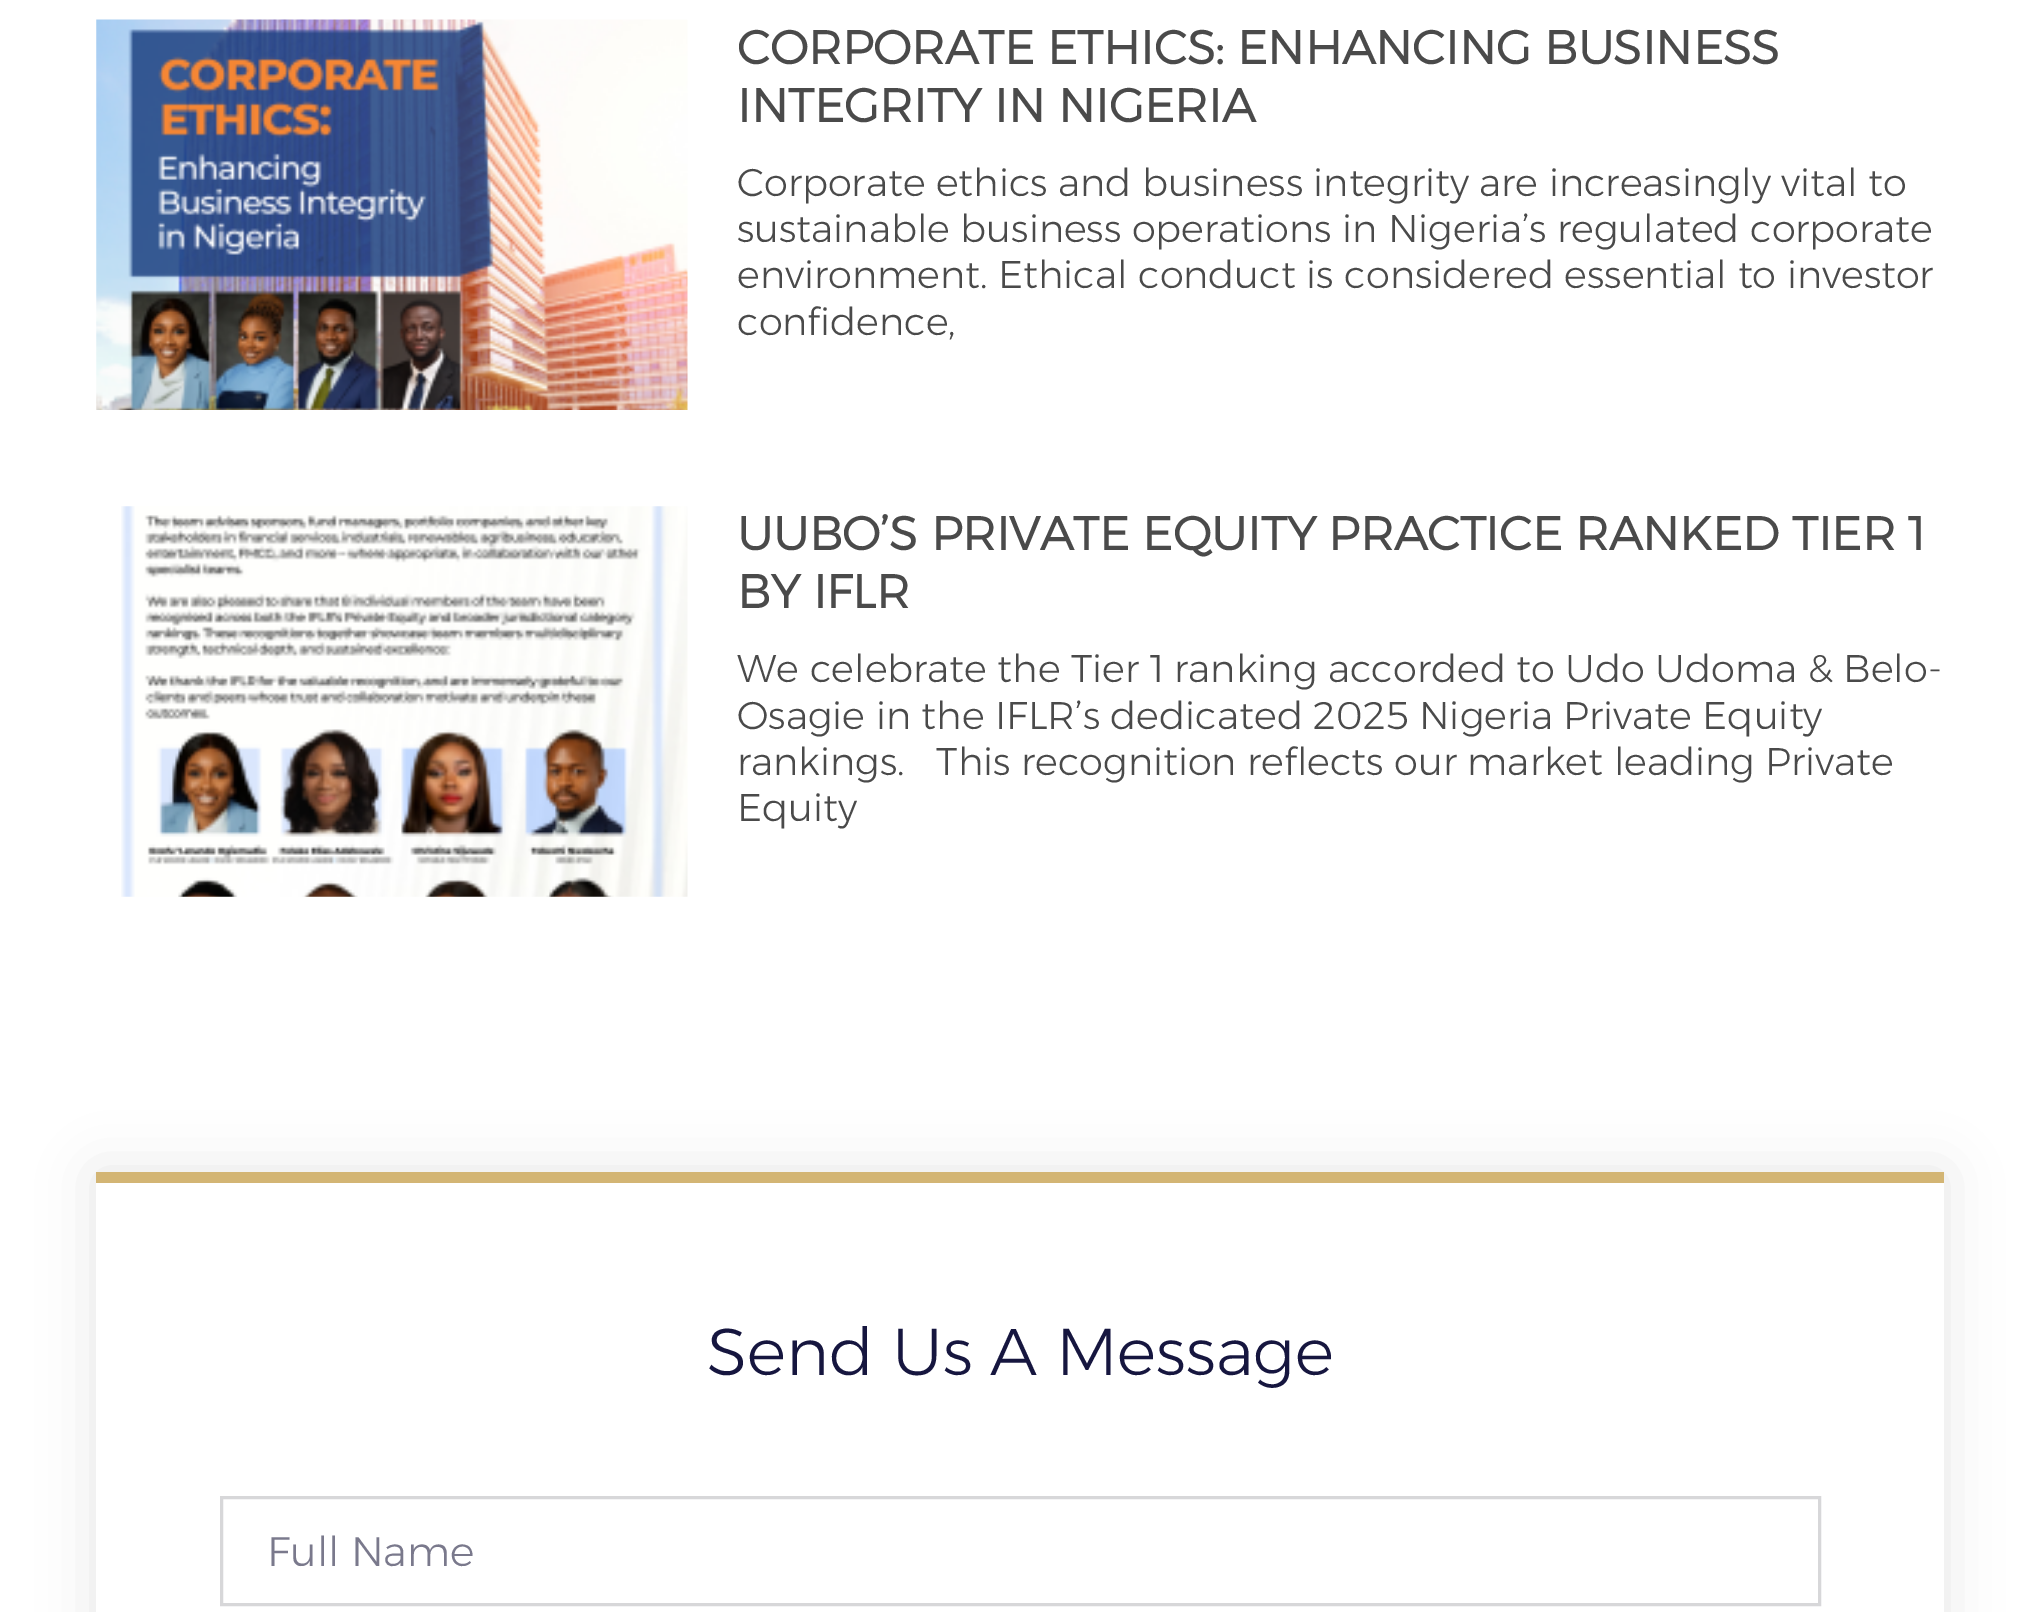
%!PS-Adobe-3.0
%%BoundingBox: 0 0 2039 1612
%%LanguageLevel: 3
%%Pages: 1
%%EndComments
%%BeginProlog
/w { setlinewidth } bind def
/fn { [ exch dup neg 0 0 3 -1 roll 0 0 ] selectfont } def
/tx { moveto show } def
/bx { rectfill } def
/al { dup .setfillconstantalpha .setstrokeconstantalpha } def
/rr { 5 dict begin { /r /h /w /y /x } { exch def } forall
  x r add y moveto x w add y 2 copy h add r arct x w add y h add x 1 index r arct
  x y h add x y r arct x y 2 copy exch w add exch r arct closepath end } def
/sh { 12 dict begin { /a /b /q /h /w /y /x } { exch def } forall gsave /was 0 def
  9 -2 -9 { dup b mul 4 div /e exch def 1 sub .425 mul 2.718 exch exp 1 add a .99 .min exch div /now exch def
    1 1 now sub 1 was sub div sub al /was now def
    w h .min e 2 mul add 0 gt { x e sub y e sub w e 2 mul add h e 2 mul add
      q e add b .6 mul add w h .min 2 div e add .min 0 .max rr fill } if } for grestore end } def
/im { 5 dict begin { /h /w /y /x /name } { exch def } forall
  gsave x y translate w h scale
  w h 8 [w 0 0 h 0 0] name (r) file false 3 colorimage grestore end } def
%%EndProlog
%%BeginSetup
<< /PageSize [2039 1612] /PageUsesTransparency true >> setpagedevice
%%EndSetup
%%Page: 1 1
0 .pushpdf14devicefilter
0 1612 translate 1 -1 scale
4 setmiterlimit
1 setgray
0 0 2039 1612 bx
(image0.raw) 96 19 592 391 im
/Montserrat-Bold 46.75 fn
0.29 setgray
(CORPORATE ETHICS: ENHANCING BUSINESS) 737 64 tx
(INTEGRITY IN NIGERIA) 737 122 tx
/Montserrat-Light 38.5 fn
(Corporate ethics and business integrity are increasingly vital to) 737 196 tx
(sustainable business operations in Nigeria’s regulated corporate) 737 242 tx
(environment. Ethical conduct is considered essential to investor) 737 288 tx
(confidence,) 737 335 tx
(image1.raw) 121 506 567 391 im
/Montserrat-Bold 46.75 fn
(UUBO’S PRIVATE EQUITY PRACTICE RANKED TIER 1) 737 550 tx
(BY IFLR) 737 608 tx
/Montserrat-Light 38.5 fn
(We celebrate the Tier 1 ranking accorded to Udo Udoma & Belo-) 737 682 tx
(Osagie in the IFLR’s dedicated 2025 Nigeria Private Equity) 737 729 tx
(rankings.   This recognition reflects our market leading Private) 737 775 tx
(Equity) 737 821 tx
0 setgray
96 1172 1848 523 0 27.5 0.1 sh
1 setgray
96 1183 1848 429 bx
0.827 0.71 0.455 setrgbcolor
96 1172 1848 11 bx
/Montserrat-Light 66 fn
0.086 0.086 0.247 setrgbcolor
(Send Us A Message) 707 1375 tx
0.843 0.843 0.851 setrgbcolor
3 w
221.5 1497.5 1598 107 rectstroke
/Montserrat-Light 41.25 fn
0.478 0.475 0.549 setrgbcolor
(Full Name) 267 1566 tx
.poppdf14devicefilter showpage
%%EOF
